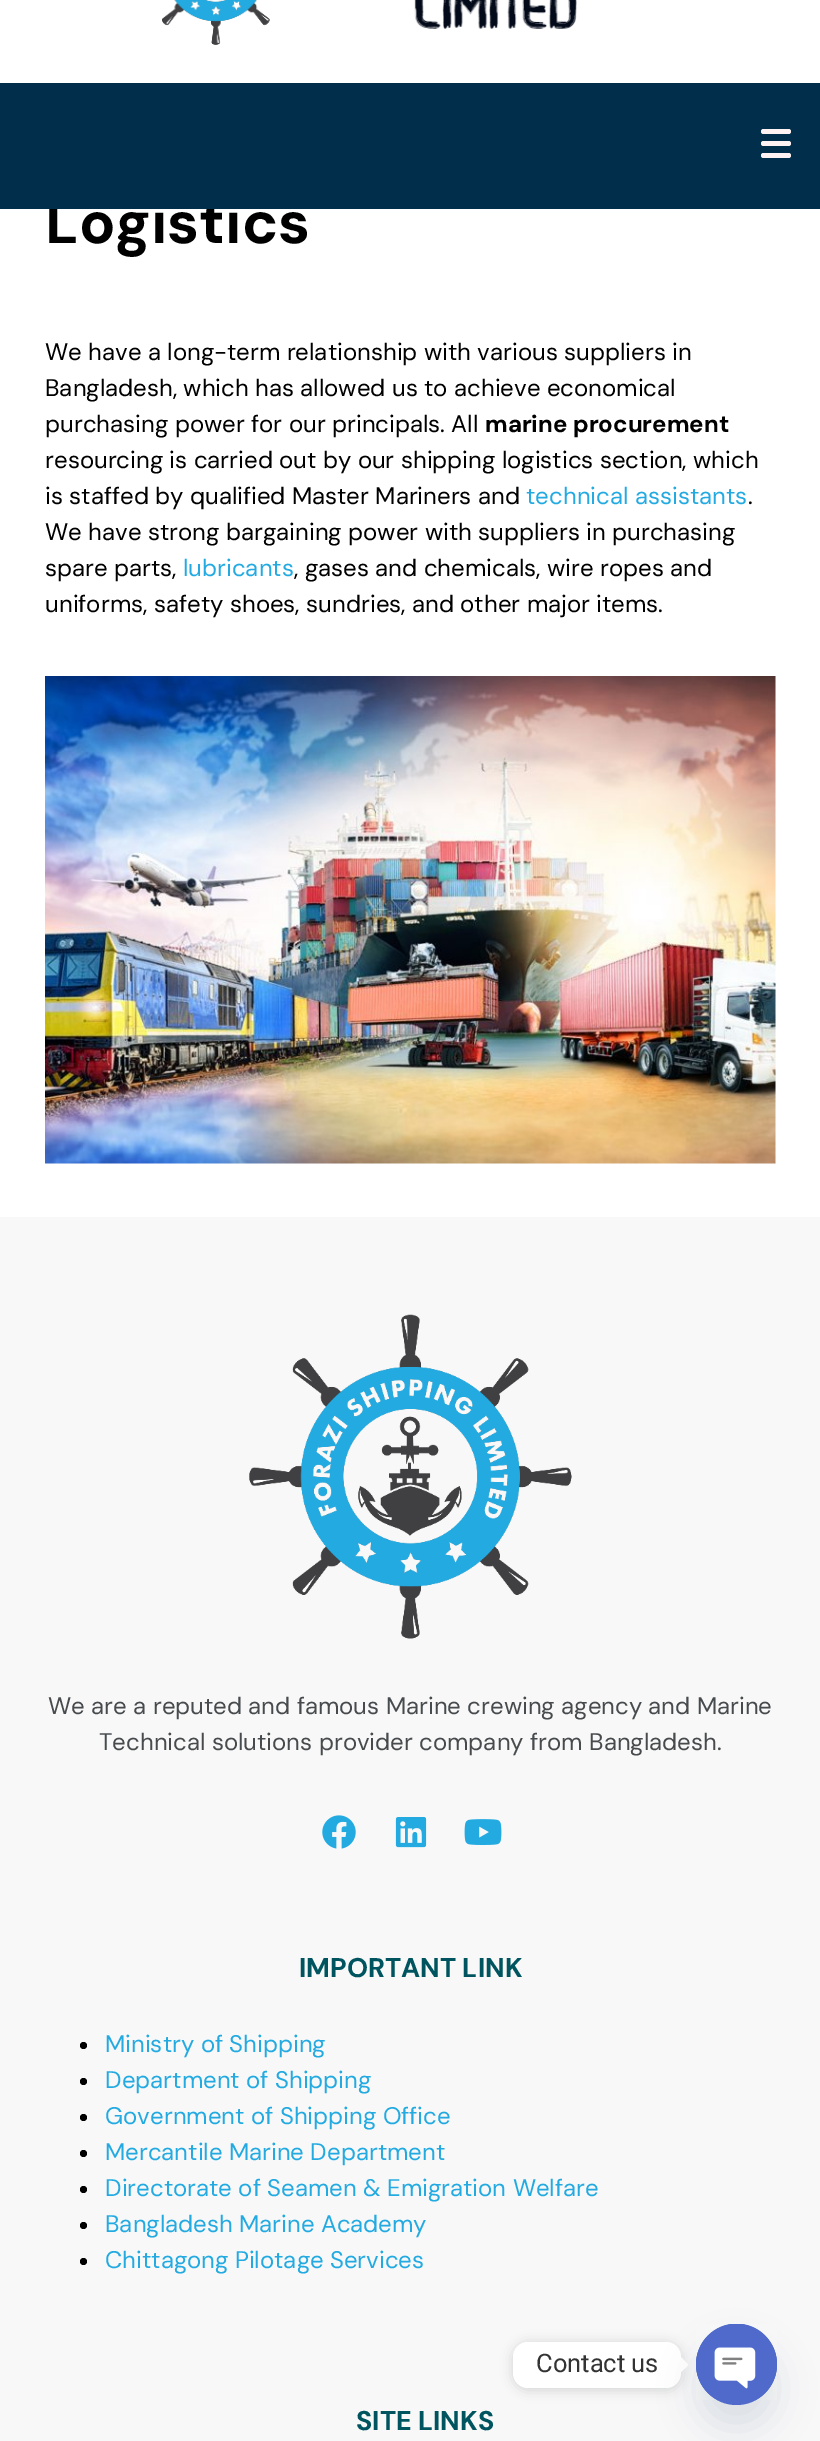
%!PS-Adobe-3.0
%%BoundingBox: 0 0 820 2441
%%LanguageLevel: 3
%%Pages: 1
%%EndComments
%%BeginProlog
/m { moveto } bind def
/l { lineto } bind def
/h { closepath } bind def
/f { fill } bind def
/fn { [ exch dup neg 0 0 3 -1 roll 0 0 ] selectfont } def
/tx { moveto show } def
/bx { rectfill } def
/al { dup .setfillconstantalpha .setstrokeconstantalpha } def
/ci { newpath 0 360 arc closepath } def
/rr { 5 dict begin { /r /h /w /y /x } { exch def } forall
  x r add y moveto x w add y 2 copy h add r arct x w add y h add x 1 index r arct
  x y h add x y r arct x y 2 copy exch w add exch r arct closepath end } def
/sh { 12 dict begin { /a /b /q /h /w /y /x } { exch def } forall gsave /was 0 def
  9 -2 -9 { dup b mul 4 div /e exch def 1 sub .425 mul 2.718 exch exp 1 add a .99 .min exch div /now exch def
    1 1 now sub 1 was sub div sub al /was now def
    w h .min e 2 mul add 0 gt { x e sub y e sub w e 2 mul add h e 2 mul add
      q e add b .6 mul add w h .min 2 div e add .min 0 .max rr fill } if } for grestore end } def
/im { 5 dict begin { /h /w /y /x /name } { exch def } forall
  gsave x y translate w h scale
  w h 8 [w 0 0 h 0 0] name (r) file false 3 colorimage grestore end } def
%%EndProlog
%%BeginSetup
<< /PageSize [820 2441] /PageUsesTransparency true >> setpagedevice
%%EndSetup
%%Page: 1 1
0 .pushpdf14devicefilter
0 2441 translate 1 -1 scale
4 setmiterlimit
0.973 setgray
0 0 820 2441 bx
1 setgray
0 0 820 83 bx
(image0.raw) 162 0 415 45 im
0 209 820 1008 bx
/DMSans-Bold 60 fn
0 setgray
(Logistics) 45 243 tx
0 0.18 0.294 setrgbcolor
0 83 820 126 bx
1 0.949 0.949 setrgbcolor
761 141 30 5 2.5 rr f
761 129 30 5 2.5 rr f
761 153 30 5 2.5 rr f
/DMSans-Regular 24 fn
0 setgray
(We have a long-term relationship with various suppliers in) 45 360 tx
(Bangladesh, which has allowed us to achieve economical) 45 396 tx
(purchasing power for our principals. All) 45 432 tx
/DMSans-Bold 24 fn
(marine procurement) 485 432 tx
/DMSans-Regular 24 fn
(resourcing is carried out by our shipping logistics section, which) 45 468 tx
(is staffed by qualified Master Mariners and) 45 504 tx
0.137 0.667 0.882 setrgbcolor
(technical assistants) 526 504 tx
0 setgray
(.) 748 504 tx
(We have strong bargaining power with suppliers in purchasing) 45 540 tx
(spare parts,) 45 576 tx
0.137 0.667 0.882 setrgbcolor
(lubricants) 183 576 tx
0 setgray
(, gases and chemicals, wire ropes and) 294 576 tx
(uniforms, safety shoes, sundries, and other major items.) 45 612 tx
(image1.raw) 45 676 731 488 im
(image2.raw) 249 1314 323 325 im
0.278 0.294 0.302 setrgbcolor
(We are a reputed and famous Marine crewing agency and Marine) 48 1714 tx
(Technical solutions provider company from Bangladesh.) 99 1750 tx
(image3.raw) 322 1815 34 34 im
(image4.raw) 395 1817 32 31 im
(image5.raw) 464 1819 38 26 im
/DMSans-Bold 27 fn
0 0.329 0.373 setrgbcolor
(IMPORTANT LINK) 299 1977 tx
0 setgray
83.5 2045.5 3.5 ci f
/DMSans-Regular 24 fn
0.137 0.667 0.882 setrgbcolor
(Ministry of Shipping) 105 2052 tx
0 setgray
83.5 2081.5 3.5 ci f
0.137 0.667 0.882 setrgbcolor
(Department of Shipping) 105 2088 tx
0 setgray
83.5 2117.5 3.5 ci f
0.137 0.667 0.882 setrgbcolor
(Government of Shipping Office) 105 2124 tx
0 setgray
83.5 2153.5 3.5 ci f
0.137 0.667 0.882 setrgbcolor
(Mercantile Marine Department) 105 2160 tx
0 setgray
83.5 2189.5 3.5 ci f
0.137 0.667 0.882 setrgbcolor
(Directorate of Seamen & Emigration Welfare) 105 2196 tx
0 setgray
83.5 2225.5 3.5 ci f
0.137 0.667 0.882 setrgbcolor
(Bangladesh Marine Academy) 105 2232 tx
0 setgray
83.5 2261.5 3.5 ci f
0.137 0.667 0.882 setrgbcolor
(Chittagong Pilotage Services) 105 2268 tx
/DMSans-Bold 27 fn
0 0.329 0.373 setrgbcolor
(SITE LINKS) 356 2430 tx
0 setgray
513 2343 168 47 15 6 0.15 sh
1 setgray
513 2342 168 46 15 rr f
/Roboto-Regular 25.5 fn
0.2 setgray
(Contact us) 536 2372 tx
1 setgray
681 2372 m 681 2357 l 688.5 2365 l h f
0.286 0.408 0.494 setrgbcolor
696 2348 81 81 40.5 18 0.16 sh
0.31 0.416 0.792 setrgbcolor
736.5 2364.5 40.5 ci f
(image6.raw) 696 2324 81 76 im
.poppdf14devicefilter showpage
%%EOF
